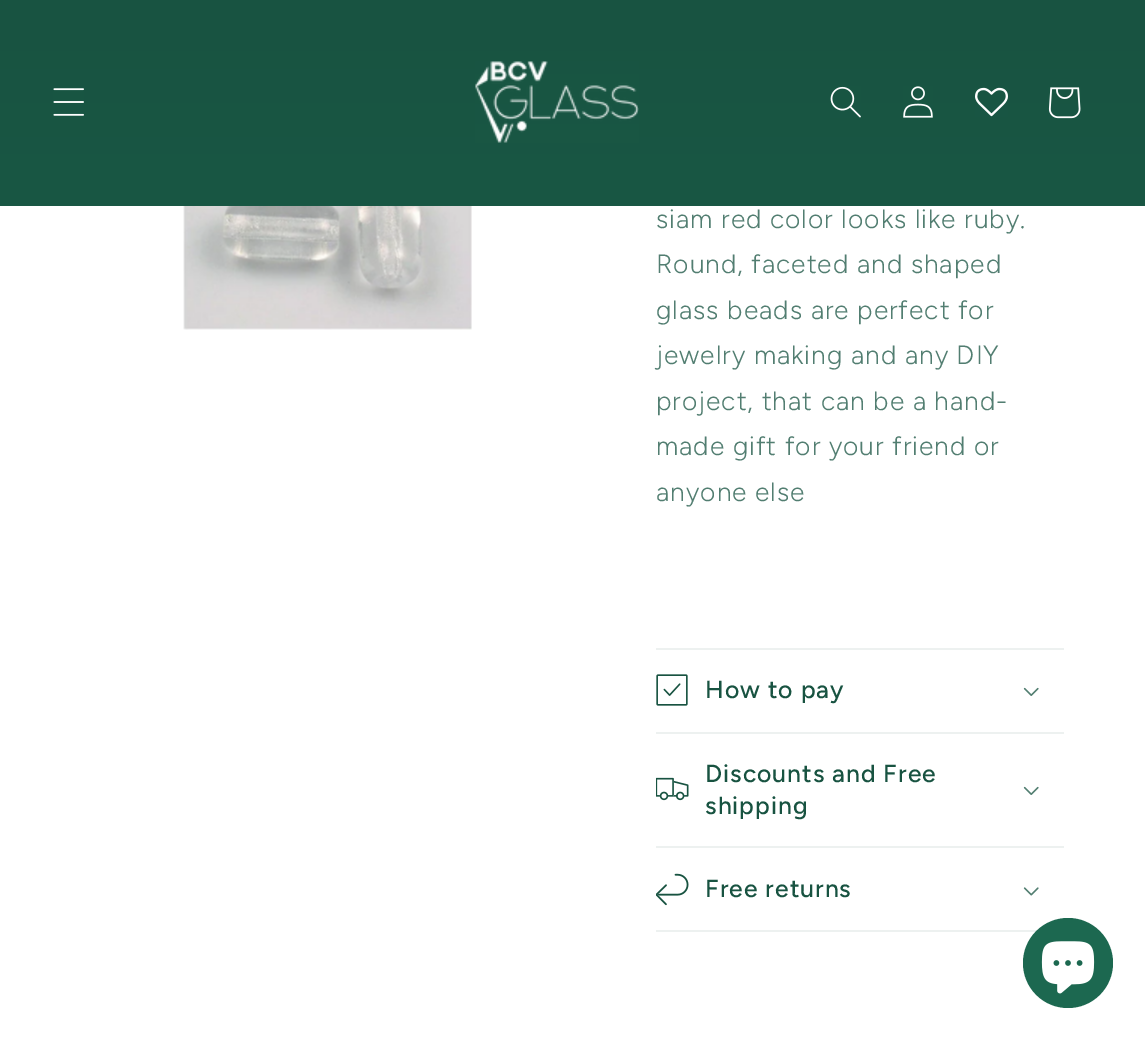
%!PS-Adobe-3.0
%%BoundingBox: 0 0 1145 1039
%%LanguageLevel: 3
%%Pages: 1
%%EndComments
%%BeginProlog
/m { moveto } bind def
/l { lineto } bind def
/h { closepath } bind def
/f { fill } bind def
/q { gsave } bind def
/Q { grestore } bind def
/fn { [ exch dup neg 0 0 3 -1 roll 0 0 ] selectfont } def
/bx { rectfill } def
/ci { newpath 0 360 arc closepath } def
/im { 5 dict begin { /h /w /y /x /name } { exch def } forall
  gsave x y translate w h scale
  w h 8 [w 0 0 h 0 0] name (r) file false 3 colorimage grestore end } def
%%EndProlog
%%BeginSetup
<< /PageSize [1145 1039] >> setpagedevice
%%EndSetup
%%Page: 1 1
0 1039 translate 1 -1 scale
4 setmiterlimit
1 setgray
0 0 1145 1039 bx
q 0 0 m 1145 0 l 1145 206 l 0 206 l h clip newpath
<< /ShadingType 2 /ColorSpace /DeviceRGB /Coords [573 0 573 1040] /Extend [true true] /Function << /FunctionType 2 /Domain [0 1] /C0 [0.094 0.325 0.255] /C1 [0.11 0.408 0.314] /N 1 >> >> shfill Q
(image0.raw) 53 88 31 28 im
(image1.raw) 475 61 164 82 im
(image2.raw) 830 86 31 32 im
(image3.raw) 903 86 30 32 im
(image4.raw) 975 87 33 30 im
(image5.raw) 1048 87 33 32 im
(image6.raw) 183 206 289 124 im
/Figtree-Light 26.4 fn
0.322 0.494 0.443 setrgbcolor
656 228 m 1 0 (siam red color looks like ruby.) ashow
656 273 m 1 0 (Round, faceted and shaped) ashow
656 319 m 1 0 (glass beads are perfect for) ashow
656 364 m 1 0 (jewelry making and any DIY) ashow
656 410 m 1 0 (project, that can be a hand-) ashow
656 455 m 1 0 (made gift for your friend or) ashow
656 501 m 1 0 (anyone else) ashow
0.929 0.945 0.941 setrgbcolor
656 648 408 2 bx
656 732 408 2 bx
(image7.raw) 656 674 32 32 im
/Figtree-Medium 24.75 fn
0.094 0.325 0.255 setrgbcolor
705 698 m 1 0 (How to pay) ashow
(image8.raw) 1023 687 16 9 im
0.929 0.945 0.941 setrgbcolor
656 846 408 2 bx
(image9.raw) 656 777 33 24 im
0.094 0.325 0.255 setrgbcolor
705 782 m 1 0 (Discounts and Free) ashow
705 814 m 1 0 (shipping) ashow
(image8.raw) 1023 786 16 9 im
0.929 0.945 0.941 setrgbcolor
656 930 382 2 bx
(image10.raw) 656 873 33 33 im
0.094 0.325 0.255 setrgbcolor
705 897 m 1 0 (Free returns) ashow
(image11.raw) 1023 887 16 9 im
0.11 0.408 0.314 setrgbcolor
1068 963 45 ci f
(image12.raw) 1041 941 54 53 im
showpage
%%EOF
